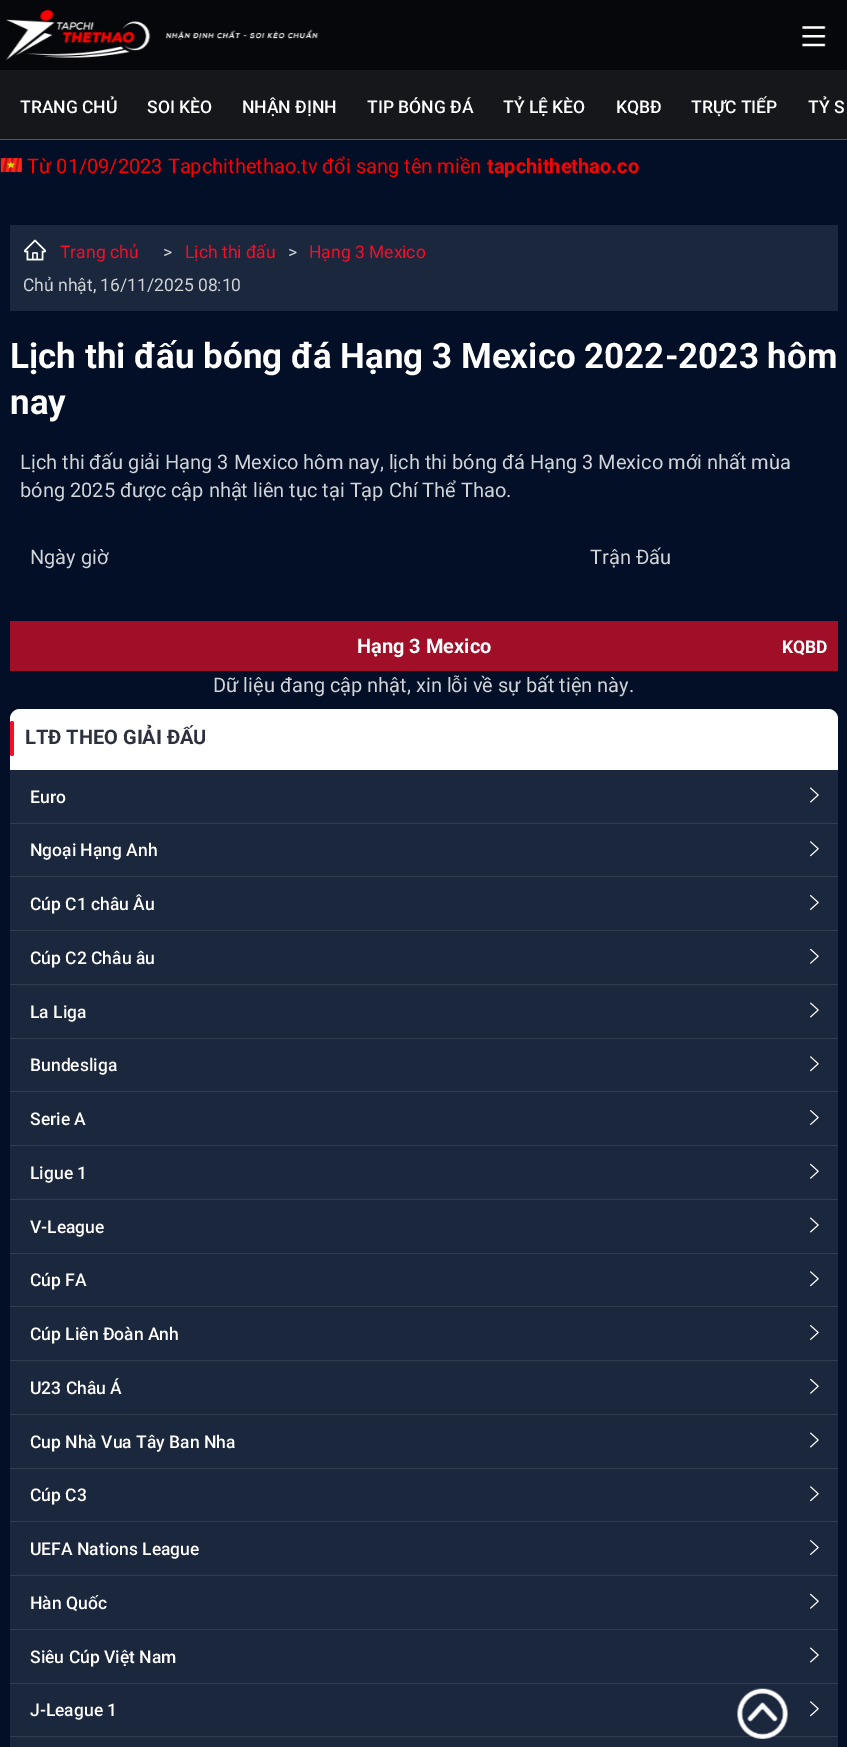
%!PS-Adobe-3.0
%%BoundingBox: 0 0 847 1747
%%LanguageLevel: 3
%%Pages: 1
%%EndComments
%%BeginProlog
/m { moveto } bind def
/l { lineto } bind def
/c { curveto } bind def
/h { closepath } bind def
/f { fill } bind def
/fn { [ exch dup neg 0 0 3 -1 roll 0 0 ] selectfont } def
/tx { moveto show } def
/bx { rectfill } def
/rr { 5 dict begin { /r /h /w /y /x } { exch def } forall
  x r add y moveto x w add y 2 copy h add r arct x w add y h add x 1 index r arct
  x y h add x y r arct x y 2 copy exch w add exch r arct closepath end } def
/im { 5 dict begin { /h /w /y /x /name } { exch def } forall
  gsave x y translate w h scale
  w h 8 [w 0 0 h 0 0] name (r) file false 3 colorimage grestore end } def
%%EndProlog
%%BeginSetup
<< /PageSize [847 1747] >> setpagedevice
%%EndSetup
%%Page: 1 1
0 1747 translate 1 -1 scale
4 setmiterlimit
0.008 0.059 0.149 setrgbcolor
0 0 847 1747 bx
0.024 0.027 0.039 setrgbcolor
0 0 847 70 bx
(image0.raw) 6 10 313 50 im
(image1.raw) 802 26 24 21 im
0.086 0.09 0.106 setrgbcolor
0 70 847 69 bx
0.969 0.051 0.157 setrgbcolor
0 139 847 1 bx
/Roboto-Medium 17.5 fn
1 setgray
(TRANG CHỦ) 20 113 tx
(SOI KÈO) 147 113 tx
(NHẬN ĐỊNH) 242 113 tx
(TIP BÓNG ĐÁ) 367 113 tx
(TỶ LỆ KÈO) 503 113 tx
(KQBĐ) 616 113 tx
(TRỰC TIẾP) 691 113 tx
(TỶ S) 808 113 tx
(image2.raw) 0 157 22 16 im
/Roboto-Regular 20 fn
1 0 0 setrgbcolor
(Từ 01/09/2023 Tapchithethao.tv đổi sang tên miền) 27 173 tx
/Roboto-Bold 20 fn
(tapchithethao.co) 487 173 tx
0.106 0.153 0.235 setrgbcolor
10 225 828 86 bx
(image3.raw) 24 239 22 22 im
/Roboto-Regular 17.5 fn
0.969 0.051 0.157 setrgbcolor
(Trang chủ) 60 258 tx
0.82 0.831 0.847 setrgbcolor
(>) 163 258 tx
0.969 0.051 0.157 setrgbcolor
(Lịch thi đấu) 185 258 tx
0.82 0.831 0.847 setrgbcolor
(>) 288 258 tx
0.969 0.051 0.157 setrgbcolor
(Hạng 3 Mexico) 309 258 tx
0.82 0.831 0.847 setrgbcolor
(Chủ nhật, 16/11/2025 08:10) 23 291 tx
/Roboto-Bold 35 fn
1 setgray
(Lịch thi đấu bóng đá Hạng 3 Mexico 2022-2023 hôm) 10 368 tx
(nay) 10 414 tx
/Roboto-Regular 20 fn
0.82 0.831 0.847 setrgbcolor
(Lịch thi đấu giải Hạng 3 Mexico hôm nay, lịch thi bóng đá Hạng 3 Mexico mới nhất mùa) 20 469 tx
(bóng 2025 được cập nhật liên tục tại Tạp Chí Thể Thao.) 20 497 tx
(Ngày giờ) 30 564 tx
(Trận Đấu) 590 564 tx
0.631 0.055 0.153 setrgbcolor
10 621 828 50 bx
/Roboto-Bold 20 fn
1 setgray
(Hạng 3 Mexico) 357 653 tx
/Roboto-Bold 17.5 fn
(KQBD) 782 653 tx
/Roboto-Regular 20 fn
0.82 0.831 0.847 setrgbcolor
(Dữ liệu đang cập nhật, xin lỗi về sự bất tiện này.) 213 692 tx
0.106 0.153 0.235 setrgbcolor
10 709 828 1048 10 rr f
1 setgray
20 709 m 828 709 l 833.5 709 838 713.5 838 719 c 838 770 l 10 770 l 10 719 l 10 713.5 14.5 709 20 709 c h f
0.969 0.051 0.157 setrgbcolor
10 721 4 35 2 rr f
/Roboto-Bold 20 fn
0.176 0.188 0.247 setrgbcolor
(LTĐ THEO GIẢI ĐẤU) 25 744 tx
0.192 0.235 0.31 setrgbcolor
10 823 828 1 bx
/Roboto-Medium 17.5 fn
1 setgray
(Euro) 30 803 tx
(image4.raw) 810 787 9 16 im
0.192 0.235 0.31 setrgbcolor
10 876 828 1 bx
1 setgray
(Ngoại Hạng Anh) 30 856 tx
(image5.raw) 810 841 9 16 im
0.192 0.235 0.31 setrgbcolor
10 930 828 1 bx
1 setgray
(Cúp C1 châu Âu) 30 910 tx
(image6.raw) 810 895 9 15 im
0.192 0.235 0.31 setrgbcolor
10 984 828 1 bx
1 setgray
(Cúp C2 Châu âu) 30 964 tx
(image7.raw) 810 948 9 16 im
0.192 0.235 0.31 setrgbcolor
10 1038 828 1 bx
1 setgray
(La Liga) 30 1018 tx
(image4.raw) 810 1002 9 16 im
0.192 0.235 0.31 setrgbcolor
10 1091 828 1 bx
1 setgray
(Bundesliga) 30 1071 tx
(image5.raw) 810 1056 9 16 im
0.192 0.235 0.31 setrgbcolor
10 1145 828 1 bx
1 setgray
(Serie A) 30 1125 tx
(image6.raw) 810 1110 9 15 im
0.192 0.235 0.31 setrgbcolor
10 1199 828 1 bx
1 setgray
(Ligue 1) 30 1179 tx
(image7.raw) 810 1163 9 16 im
0.192 0.235 0.31 setrgbcolor
10 1253 828 1 bx
1 setgray
(V-League) 30 1233 tx
(image4.raw) 810 1217 9 16 im
0.192 0.235 0.31 setrgbcolor
10 1306 828 1 bx
1 setgray
(Cúp FA) 30 1286 tx
(image5.raw) 810 1271 9 16 im
0.192 0.235 0.31 setrgbcolor
10 1360 828 1 bx
1 setgray
(Cúp Liên Đoàn Anh) 30 1340 tx
(image6.raw) 810 1325 9 15 im
0.192 0.235 0.31 setrgbcolor
10 1414 828 1 bx
1 setgray
(U23 Châu Á) 30 1394 tx
(image7.raw) 810 1378 9 16 im
0.192 0.235 0.31 setrgbcolor
10 1468 828 1 bx
1 setgray
(Cup Nhà Vua Tây Ban Nha) 30 1448 tx
(image4.raw) 810 1432 9 16 im
0.192 0.235 0.31 setrgbcolor
10 1521 828 1 bx
1 setgray
(Cúp C3) 30 1501 tx
(image5.raw) 810 1486 9 16 im
0.192 0.235 0.31 setrgbcolor
10 1575 828 1 bx
1 setgray
(UEFA Nations League) 30 1555 tx
(image6.raw) 810 1540 9 15 im
0.192 0.235 0.31 setrgbcolor
10 1629 828 1 bx
1 setgray
(Hàn Quốc) 30 1609 tx
(image7.raw) 810 1593 9 16 im
0.192 0.235 0.31 setrgbcolor
10 1683 828 1 bx
1 setgray
(Siêu Cúp Việt Nam) 30 1663 tx
(image4.raw) 810 1647 9 16 im
0.192 0.235 0.31 setrgbcolor
10 1736 828 1 bx
1 setgray
(J-League 1) 30 1716 tx
(image5.raw) 810 1701 9 16 im
(image8.raw) 737 1688 51 51 im
showpage
%%EOF
